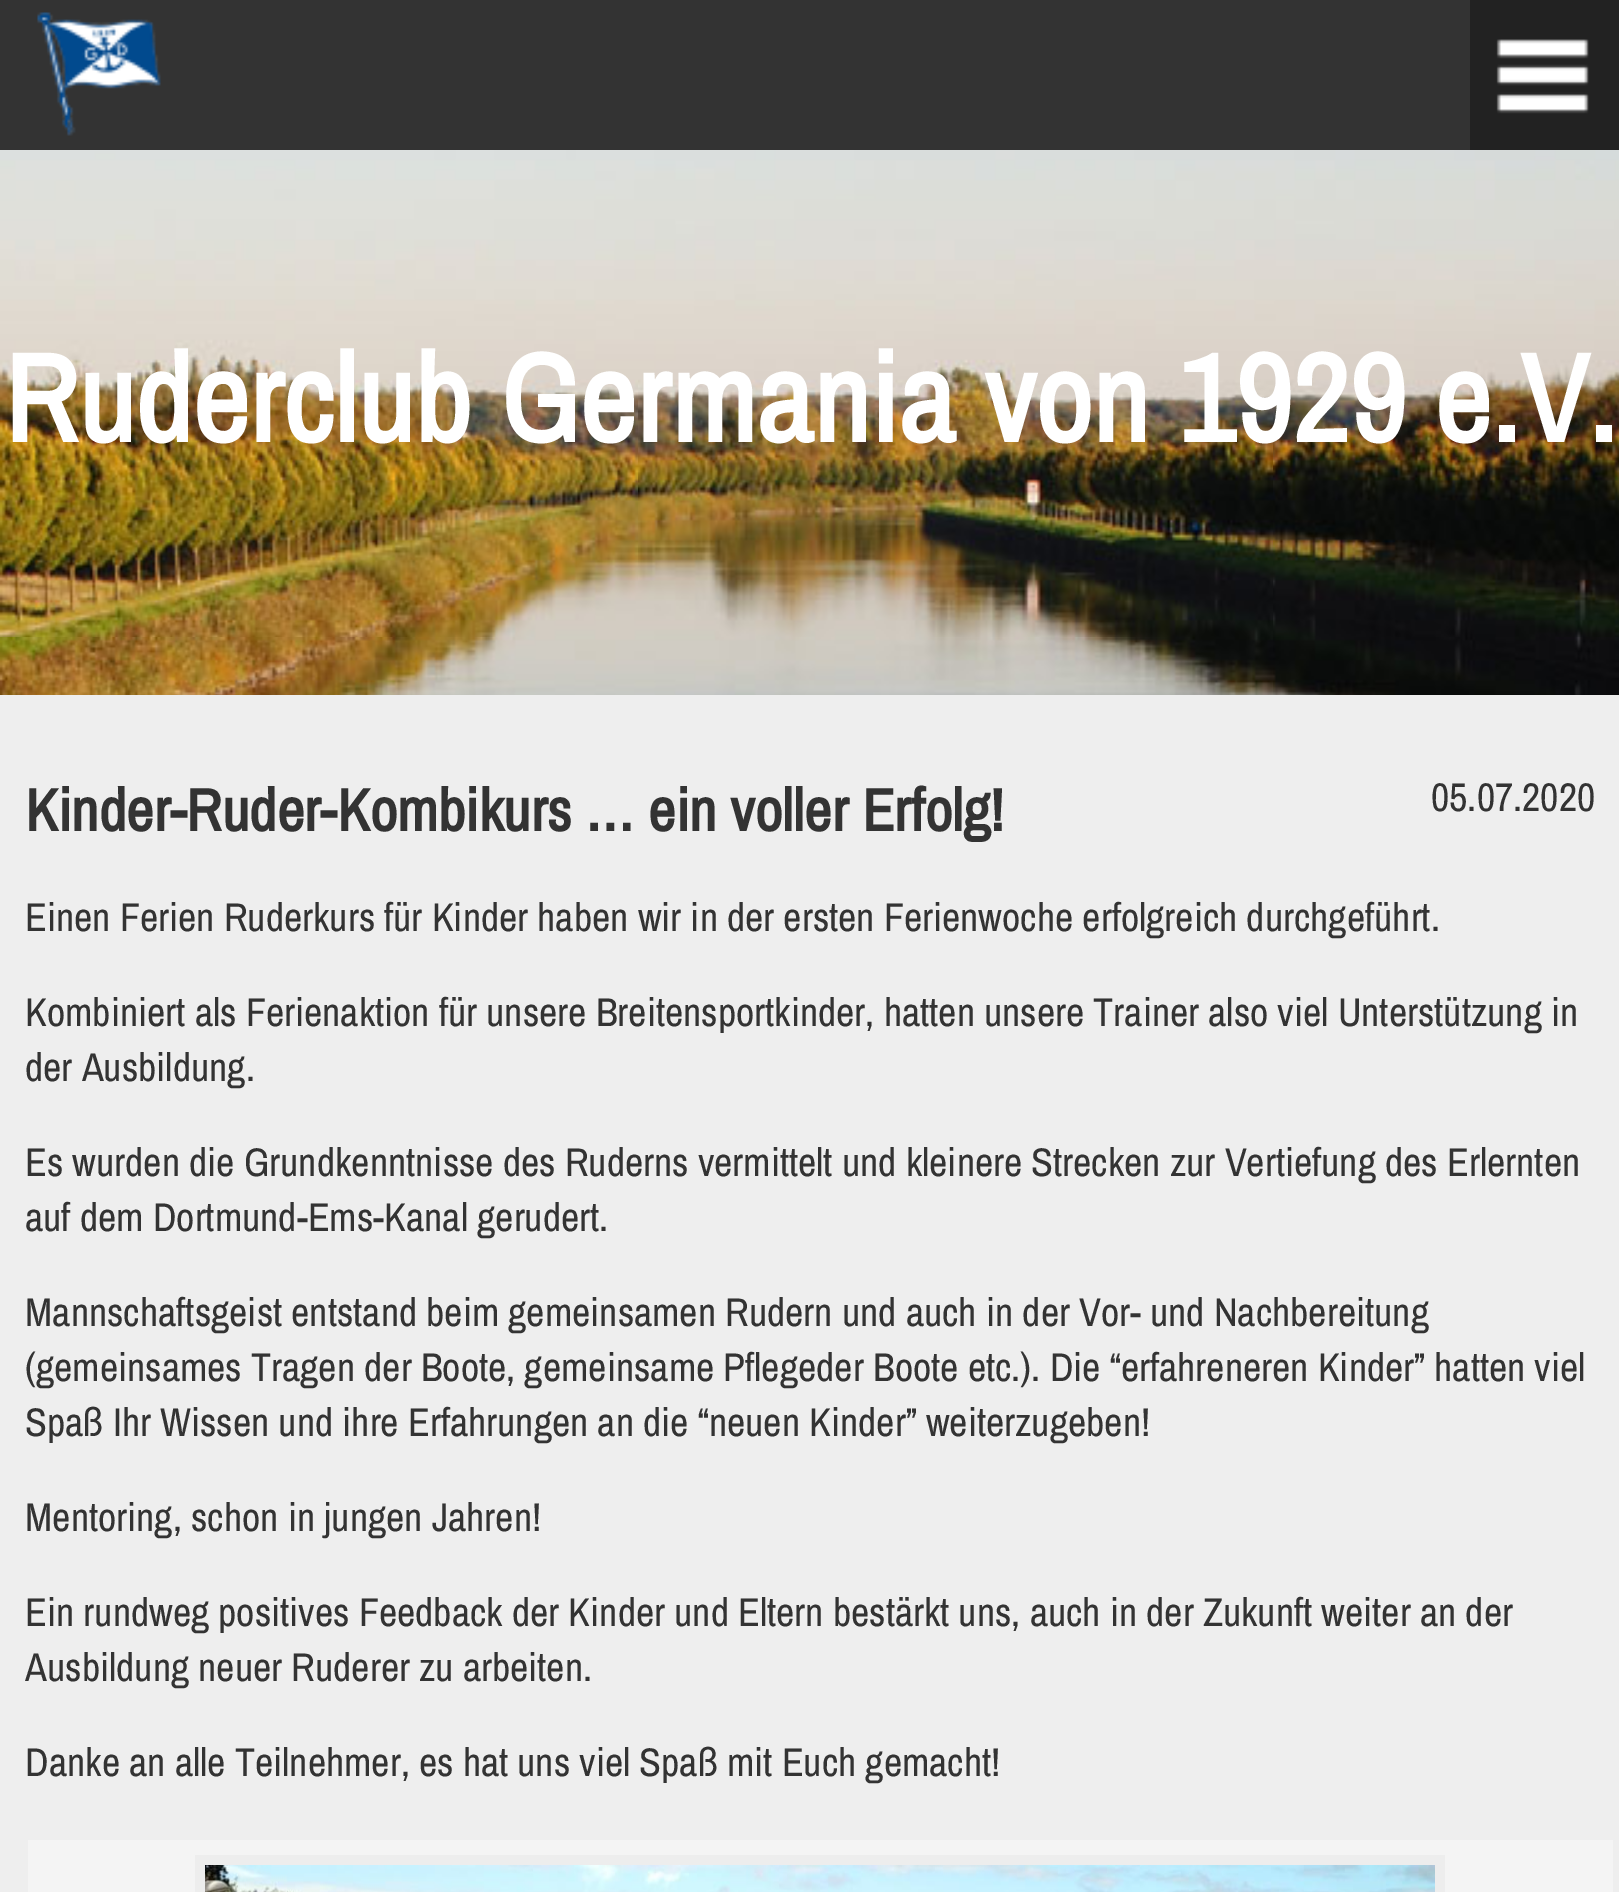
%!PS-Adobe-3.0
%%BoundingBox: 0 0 1619 1892
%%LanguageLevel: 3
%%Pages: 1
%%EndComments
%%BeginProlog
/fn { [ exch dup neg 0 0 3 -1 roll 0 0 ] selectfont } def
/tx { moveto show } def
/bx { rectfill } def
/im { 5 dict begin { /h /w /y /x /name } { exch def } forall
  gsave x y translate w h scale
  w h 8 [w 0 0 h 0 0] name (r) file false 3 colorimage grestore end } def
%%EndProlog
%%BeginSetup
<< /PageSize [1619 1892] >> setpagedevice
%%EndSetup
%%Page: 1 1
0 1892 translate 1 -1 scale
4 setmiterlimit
1 setgray
0 0 1619 1892 bx
(image0.raw) 0 150 1619 545 im
0.2 setgray
0 0 1470 150 bx
(image1.raw) 37 12 124 124 im
0.133 setgray
1470 0 149 150 bx
(image2.raw) 1496 39 93 75 im
/ArchivoNarrow-Bold 125 fn
1 setgray
(Ruderclub Germania von 1929 e.V.) 4 442 tx
0.933 setgray
0 695 1619 1197 bx
/ArchivoNarrow-Bold 60 fn
0.2 setgray
(Kinder-Ruder-Kombikurs … ein voller Erfolg!) 25 831 tx
/ArchivoNarrow-Regular 40 fn
(05.07.2020) 1431 811 tx
(Einen Ferien Ruderkurs für Kinder haben wir in der ersten Ferienwoche erfolgreich durchgeführt.) 25 931 tx
(Kombiniert als Ferienaktion für unsere Breitensportkinder, hatten unsere Trainer also viel Unterstützung in) 25 1026 tx
(der Ausbildung.) 25 1081 tx
(Es wurden die Grundkenntnisse des Ruderns vermittelt und kleinere Strecken zur Vertiefung des Erlernten) 25 1176 tx
(auf dem Dortmund-Ems-Kanal gerudert.) 25 1231 tx
(Mannschaftsgeist entstand beim gemeinsamen Rudern und auch in der Vor- und Nachbereitung) 25 1326 tx
(\(gemeinsames Tragen der Boote, gemeinsame Pflegeder Boote etc.\). Die “erfahreneren Kinder” hatten viel) 25 1381 tx
(Spaß Ihr Wissen und ihre Erfahrungen an die “neuen Kinder” weiterzugeben!) 25 1436 tx
(Mentoring, schon in jungen Jahren!) 25 1531 tx
(Ein rundweg positives Feedback der Kinder und Eltern bestärkt uns, auch in der Zukunft weiter an der) 25 1626 tx
(Ausbildung neuer Ruderer zu arbeiten.) 25 1681 tx
(Danke an alle Teilnehmer, es hat uns viel Spaß mit Euch gemacht!) 25 1776 tx
0.957 setgray
28 1840 1585 52 bx
0.929 setgray
195 1855 1250 37 bx
(image3.raw) 205 1865 1230 27 im
showpage
%%EOF
